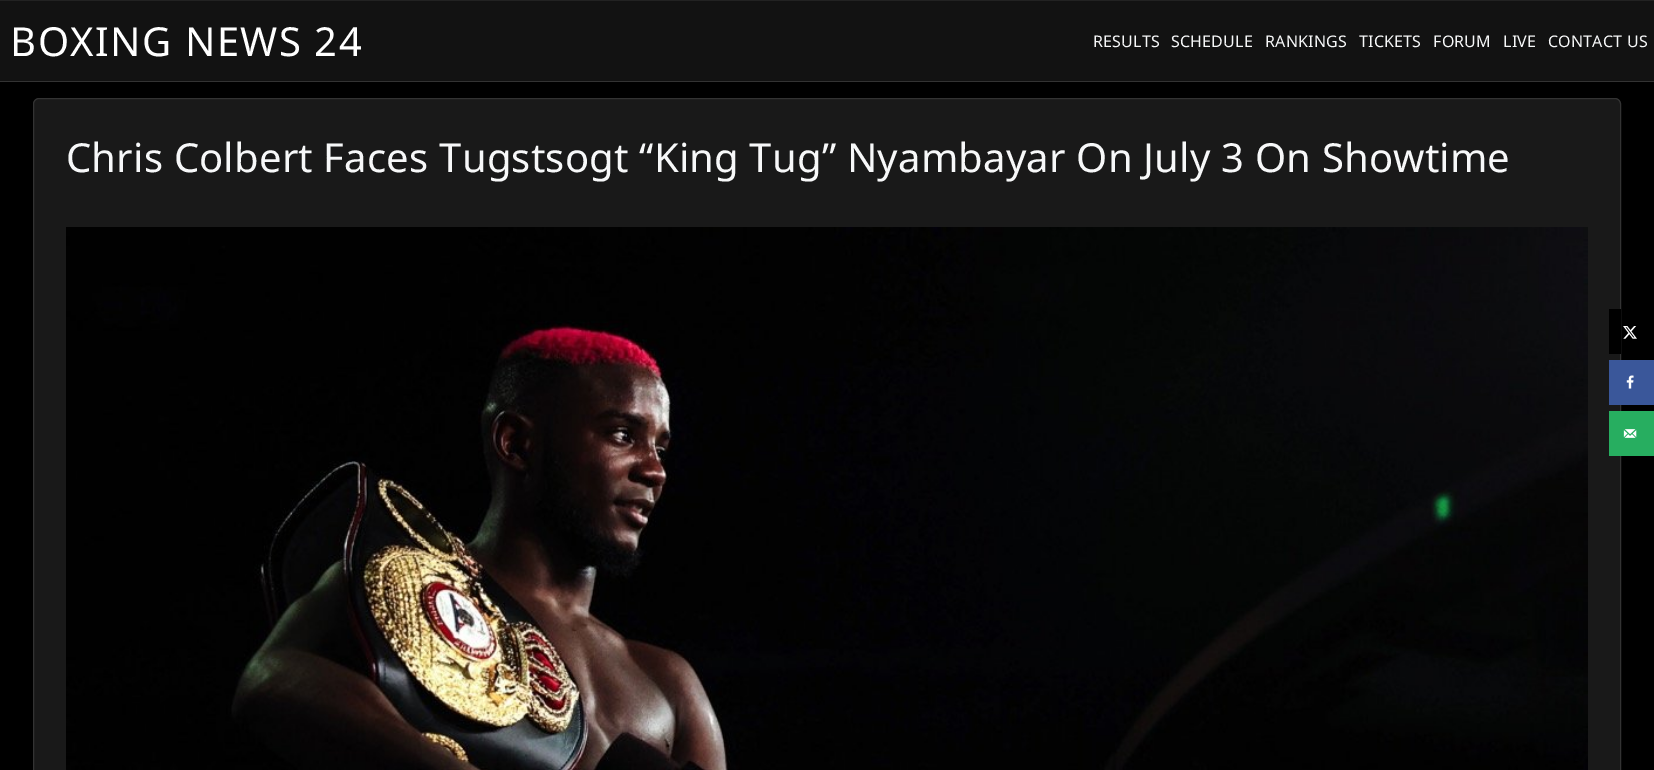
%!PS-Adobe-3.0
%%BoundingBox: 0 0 1654 770
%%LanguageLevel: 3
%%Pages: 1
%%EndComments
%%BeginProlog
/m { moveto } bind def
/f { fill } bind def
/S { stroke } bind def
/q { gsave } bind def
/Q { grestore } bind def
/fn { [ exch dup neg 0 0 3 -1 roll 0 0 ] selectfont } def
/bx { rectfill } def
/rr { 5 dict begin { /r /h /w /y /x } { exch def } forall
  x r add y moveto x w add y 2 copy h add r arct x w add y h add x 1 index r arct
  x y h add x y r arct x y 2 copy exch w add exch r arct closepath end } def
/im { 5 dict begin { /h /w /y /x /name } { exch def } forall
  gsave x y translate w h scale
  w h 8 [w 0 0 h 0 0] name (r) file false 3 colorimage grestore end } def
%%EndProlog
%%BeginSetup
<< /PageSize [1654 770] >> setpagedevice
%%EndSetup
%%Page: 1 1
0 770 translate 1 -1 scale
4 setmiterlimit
0 setgray
0 0 1654 770 bx
0.071 setgray
0 1 1654 80 bx
0.133 setgray
0 0 1654 1 bx
0.2 setgray
0 81 1654 1 bx
/NotoSans-Regular 40 fn
1 setgray
10 56 m 1.5 0 (BOXING NEWS 24) ashow
/NotoSans-Regular 16 fn
0.969 0.973 0.976 setrgbcolor
1093 47 m 0.2 0 (RESULTS) ashow
1171 47 m 0.2 0 (SCHEDULE) ashow
1265 47 m 0.2 0 (RANKINGS) ashow
1359 47 m 0.2 0 (TICKETS) ashow
1433 47 m 0.2 0 (FORUM) ashow
1503 47 m 0.2 0 (LIVE) ashow
1548 47 m 0.2 0 (CONTACT US) ashow
0.098 setgray
33.5 98.5 1587 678 5.5 rr q f Q
0.2 setgray
S
/NotoSans-Regular 40 fn
0.969 0.973 0.976 setrgbcolor
66 172 m 0.2 0 (Chris Colbert Faces Tugstsogt “King Tug” Nyambayar On July 3 On Showtime) ashow
(image0.raw) 66 227 1522 543 im
0 setgray
1609 309 12 45 bx
(image1.raw) 1623 326 14 13 im
0.227 0.341 0.604 setrgbcolor
1609 360 45 45 bx
(image2.raw) 1626 375 8 14 im
0.153 0.682 0.376 setrgbcolor
1609 411 45 45 bx
(image3.raw) 1623 429 14 9 im
showpage
%%EOF
